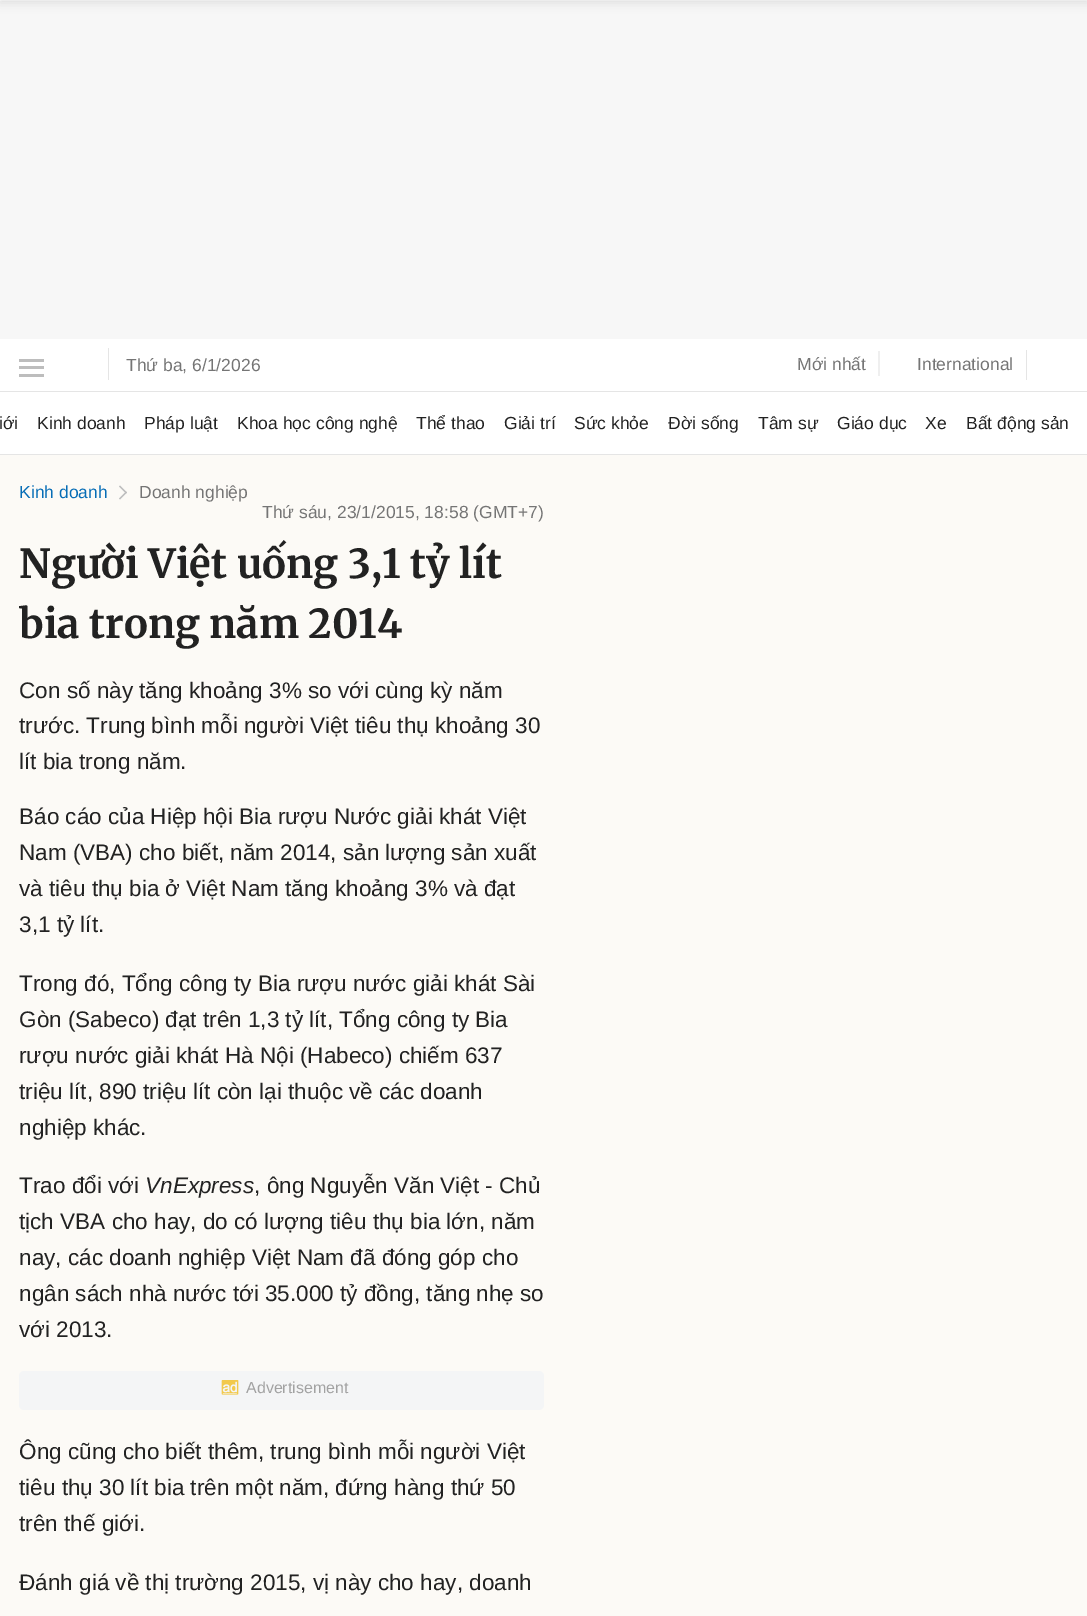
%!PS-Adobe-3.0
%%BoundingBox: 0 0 1087 1616
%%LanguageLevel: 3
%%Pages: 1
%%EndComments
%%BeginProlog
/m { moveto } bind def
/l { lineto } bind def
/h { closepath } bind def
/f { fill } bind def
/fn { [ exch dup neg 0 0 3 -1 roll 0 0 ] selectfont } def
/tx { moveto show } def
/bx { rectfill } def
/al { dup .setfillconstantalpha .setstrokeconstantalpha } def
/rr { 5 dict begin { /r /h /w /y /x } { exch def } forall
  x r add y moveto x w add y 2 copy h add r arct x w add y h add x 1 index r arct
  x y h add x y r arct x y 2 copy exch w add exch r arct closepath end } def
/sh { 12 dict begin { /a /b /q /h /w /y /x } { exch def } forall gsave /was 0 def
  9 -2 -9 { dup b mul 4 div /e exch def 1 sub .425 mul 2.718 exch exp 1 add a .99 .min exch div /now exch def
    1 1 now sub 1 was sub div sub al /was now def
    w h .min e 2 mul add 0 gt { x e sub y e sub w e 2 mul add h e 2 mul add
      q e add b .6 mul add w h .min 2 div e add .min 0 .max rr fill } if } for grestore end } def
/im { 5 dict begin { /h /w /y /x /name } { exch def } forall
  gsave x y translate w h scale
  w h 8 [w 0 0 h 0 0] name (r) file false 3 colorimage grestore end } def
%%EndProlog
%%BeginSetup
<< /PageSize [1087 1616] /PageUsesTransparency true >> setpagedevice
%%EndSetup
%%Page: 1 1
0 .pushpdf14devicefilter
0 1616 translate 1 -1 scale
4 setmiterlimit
1 setgray
0 0 1087 1616 bx
0.969 setgray
0 1 1087 338 bx
0.898 setgray
0 391 1087 1 bx
0.741 setgray
19 359 25 3 bx
19 366 25 3 bx
19 374 25 3 bx
0.898 setgray
108 348 1 32 bx
/LiberationSans-Regular 17.5 fn
0.459 setgray
(Thứ ba, 6/1/2026) 126 371 tx
(Mới nhất) 797 370 tx
0.937 setgray
878 351 2 25 bx
0.459 setgray
(International) 917 370 tx
0.898 setgray
1026 350 1 30 bx
0 454 1087 1 bx
0.133 setgray
(iới) -1 429 tx
(Kinh doanh) 37 429 tx
(Pháp luật) 144 429 tx
(Khoa học công nghệ) 237 429 tx
(Thể thao) 416 429 tx
(Giải trí) 504 429 tx
(Sức khỏe) 574 429 tx
(Đời sống) 668 429 tx
(Tâm sự) 758 429 tx
(Giáo dục) 837 429 tx
(Xe) 925 429 tx
(Bất động sản) 966 429 tx
0.988 0.98 0.965 setrgbcolor
0 455 1087 1161 bx
0 setgray
0 -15 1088 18 0 5 0.1 sh
0.027 0.427 0.714 setrgbcolor
(Kinh doanh) 19 498 tx
0.741 setgray
120 485.5 m 127 492.5 l 126 493.5 l 119 486.5 l h f
126 491.5 m 127 492.5 l 120 499.5 l 119 498.5 l h f
0.459 setgray
(Doanh nghiệp) 139 498 tx
(Thứ sáu, 23/1/2015, 18:58 \(GMT+7\)) 262 518 tx
/Merriweather-Bold 40 fn
0.133 setgray
(Người Việt uống 3,1 tỷ lít) 19 578 tx
(bia trong năm 2014) 19 638 tx
/LiberationSans-Regular 22.5 fn
(Con số này tăng khoảng 3% so với cùng kỳ năm) 19 698 tx
(trước. Trung bình mỗi người Việt tiêu thụ khoảng 30) 19 733 tx
(lít bia trong năm.) 19 769 tx
(Báo cáo của Hiệp hội Bia rượu Nước giải khát Việt) 19 824 tx
(Nam \(VBA\) cho biết, năm 2014, sản lượng sản xuất) 19 860 tx
(và tiêu thụ bia ở Việt Nam tăng khoảng 3% và đạt) 19 896 tx
(3,1 tỷ lít.) 19 932 tx
(Trong đó, Tổng công ty Bia rượu nước giải khát Sài) 19 991 tx
(Gòn \(Sabeco\) đạt trên 1,3 tỷ lít, Tổng công ty Bia) 19 1027 tx
(rượu nước giải khát Hà Nội \(Habeco\) chiếm 637) 19 1063 tx
(triệu lít, 890 triệu lít còn lại thuộc về các doanh) 19 1099 tx
(nghiệp khác.) 19 1135 tx
(Trao đổi với) 19 1193 tx
/LiberationSans-Italic 22.5 fn
(VnExpress) 145 1193 tx
/LiberationSans-Regular 22.5 fn
(, ông Nguyễn Văn Việt - Chủ) 254 1193 tx
(tịch VBA cho hay, do có lượng tiêu thụ bia lớn, năm) 19 1229 tx
(nay, các doanh nghiệp Việt Nam đã đóng góp cho) 19 1265 tx
(ngân sách nhà nước tới 35.000 tỷ đồng, tăng nhẹ so) 19 1301 tx
(với 2013.) 19 1337 tx
0.957 0.961 0.965 setrgbcolor
19 1371 525 39 5 rr f
(image0.raw) 221 1380 18 15 im
/LiberationSans-Regular 16 fn
0.635 setgray
(Advertisement) 246 1393 tx
/LiberationSans-Regular 22.5 fn
0.133 setgray
(Ông cũng cho biết thêm, trung bình mỗi người Việt) 19 1459 tx
(tiêu thụ 30 lít bia trên một năm, đứng hàng thứ 50) 19 1495 tx
(trên thế giới.) 19 1531 tx
(Đánh giá về thị trường 2015, vị này cho hay, doanh) 19 1590 tx
.poppdf14devicefilter showpage
%%EOF
